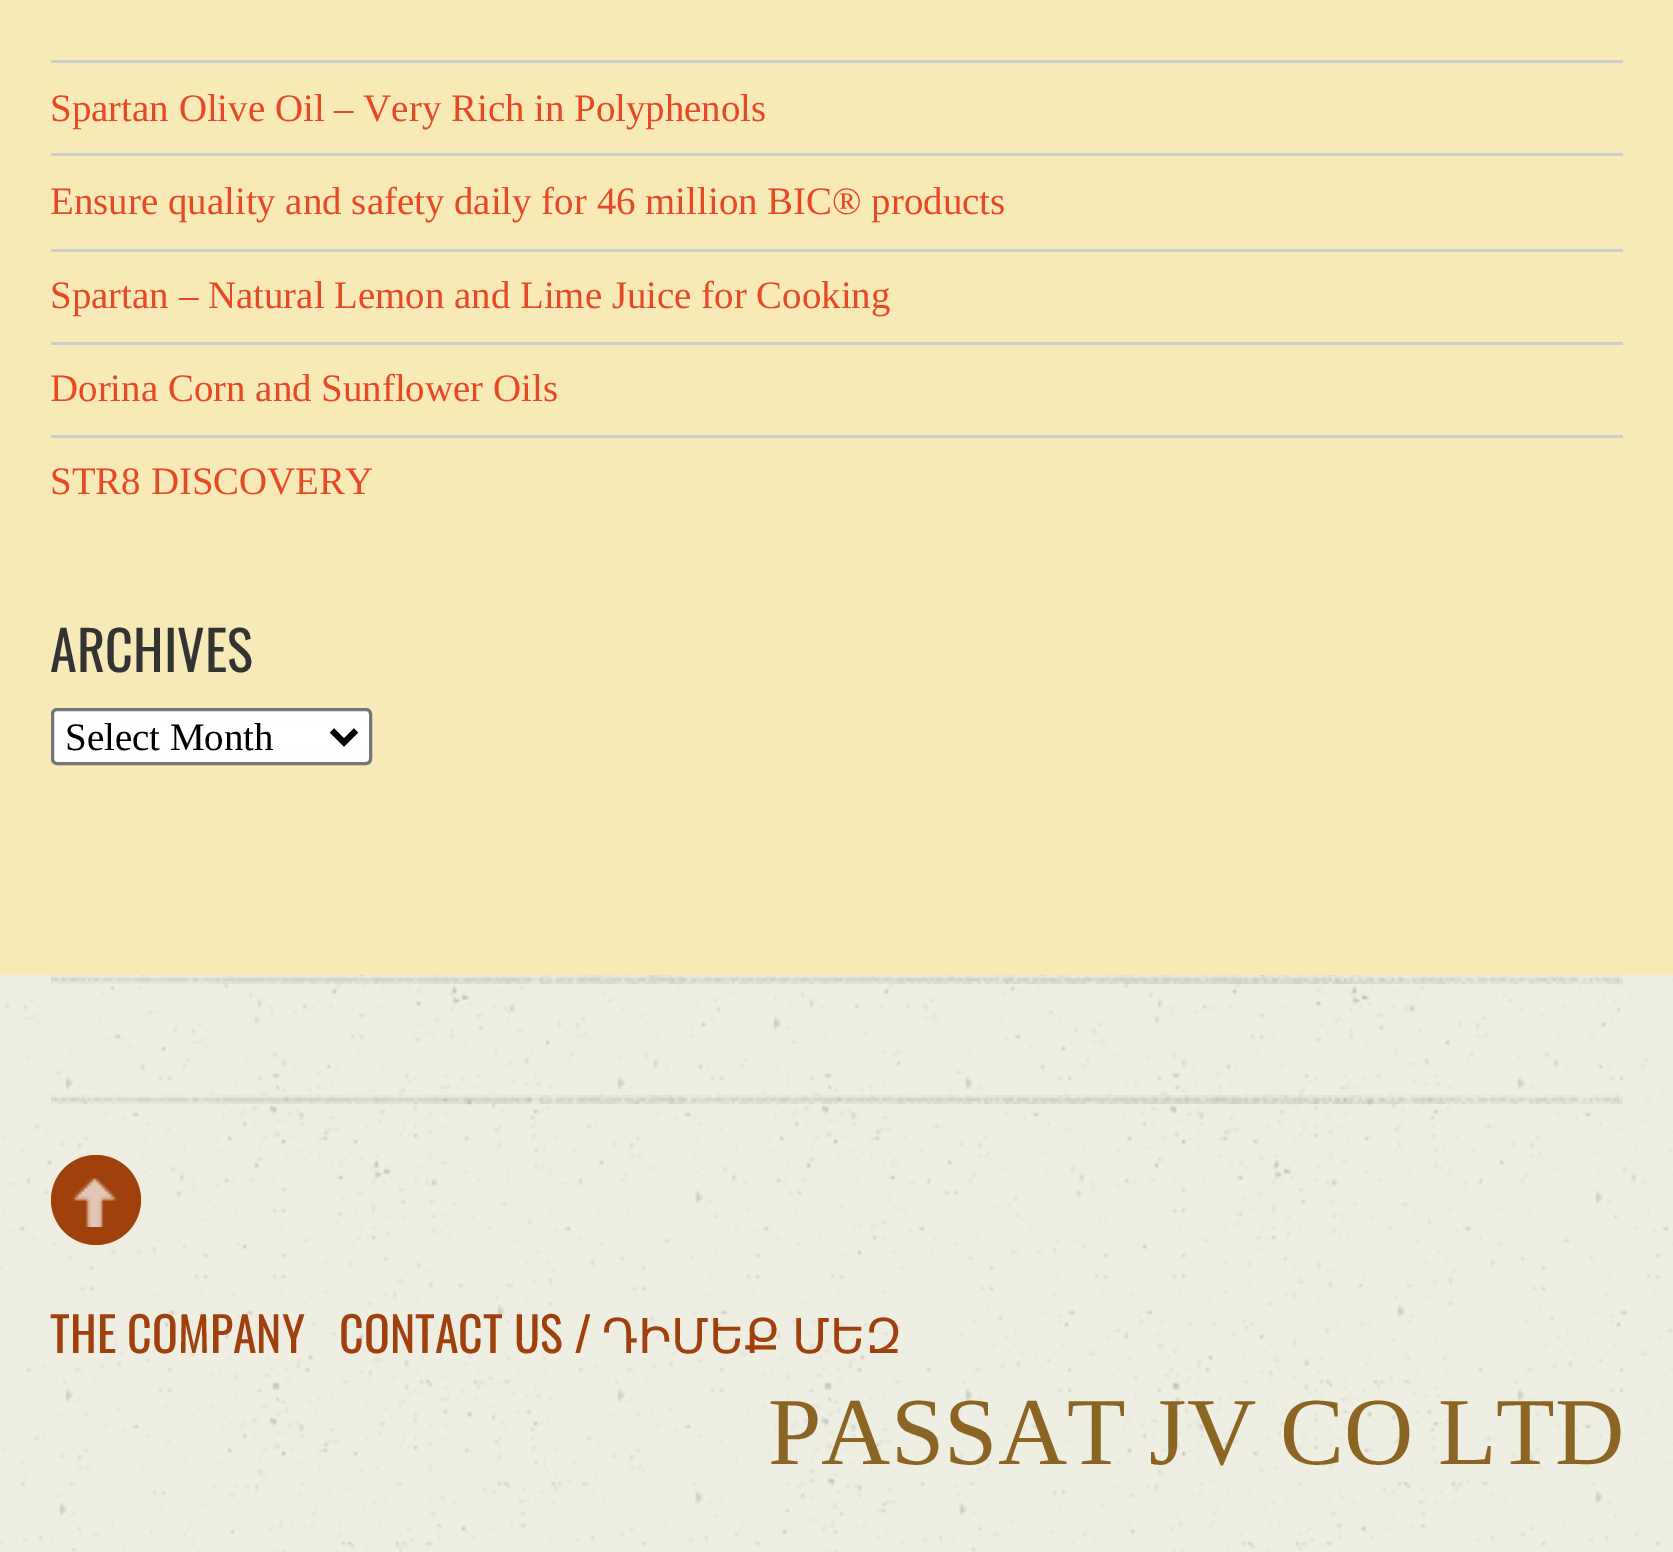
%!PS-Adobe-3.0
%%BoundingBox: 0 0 1673 1552
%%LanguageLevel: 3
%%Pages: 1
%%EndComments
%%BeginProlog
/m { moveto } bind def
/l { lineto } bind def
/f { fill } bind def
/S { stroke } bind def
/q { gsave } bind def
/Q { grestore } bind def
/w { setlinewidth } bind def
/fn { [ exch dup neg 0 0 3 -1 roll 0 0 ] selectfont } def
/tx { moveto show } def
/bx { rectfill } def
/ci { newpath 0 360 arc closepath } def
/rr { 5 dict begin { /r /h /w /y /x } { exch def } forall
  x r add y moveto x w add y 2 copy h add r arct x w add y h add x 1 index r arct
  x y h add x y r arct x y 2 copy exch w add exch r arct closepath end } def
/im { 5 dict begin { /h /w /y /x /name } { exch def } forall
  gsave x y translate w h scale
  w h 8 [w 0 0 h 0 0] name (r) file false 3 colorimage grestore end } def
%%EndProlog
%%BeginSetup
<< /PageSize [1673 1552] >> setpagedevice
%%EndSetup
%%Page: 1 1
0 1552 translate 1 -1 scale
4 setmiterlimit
0.933 0.933 0.886 setrgbcolor
0 0 1673 1552 bx
(image0.raw) 0 975 1673 577 im
0.969 0.918 0.718 setrgbcolor
0 0 1673 975 bx
0.8 setgray
51 60 1572 3 bx
/LiberationSerif-Regular 38.9 fn
0.91 0.286 0.145 setrgbcolor
(Spartan Olive Oil – Very Rich in Polyphenols) 50 121 tx
0.8 setgray
51 153 1572 3 bx
0.91 0.286 0.145 setrgbcolor
(Ensure quality and safety daily for 46 million BIC® products) 50 214 tx
0.8 setgray
51 249 1572 3 bx
0.91 0.286 0.145 setrgbcolor
(Spartan – Natural Lemon and Lime Juice for Cooking) 50 308 tx
0.8 setgray
51 342 1572 3 bx
0.91 0.286 0.145 setrgbcolor
(Dorina Corn and Sunflower Oils) 50 401 tx
0.8 setgray
51 435 1572 3 bx
0.91 0.286 0.145 setrgbcolor
(STR8 DISCOVERY) 50 494 tx
/Oswald-Regular 54.5 fn
0.2 setgray
(ARCHIVES) 50 672 tx
1 setgray
52.5 709.5 318 54 4.5 rr q f Q
0.463 setgray
3 w
S
0 setgray
6 w
332 730.5 m 344 742.5 l 356 730.5 l S
/LiberationSerif-Regular 38.9 fn
(Select Month) 65 750 tx
(image1.raw) 51 975 1572 9 im
(image2.raw) 51 1095 1572 9 im
0.627 0.255 0.051 setrgbcolor
96 1200 45 ci f
(image3.raw) 72 1178 45 49 im
/Oswald-Regular 48 fn
(THE COMPANY) 50 1353 tx
(CONTACT US /) 339 1353 tx
/DejaVuSans-Regular 48 fn
(ԴԻՄԵՔ) 602 1353 tx
(ՄԵԶ) 792 1353 tx
/LiberationSerif-Regular 96 fn
0.549 0.392 0.141 setrgbcolor
(PASSAT JV CO LTD) 768 1464 tx
showpage
%%EOF
